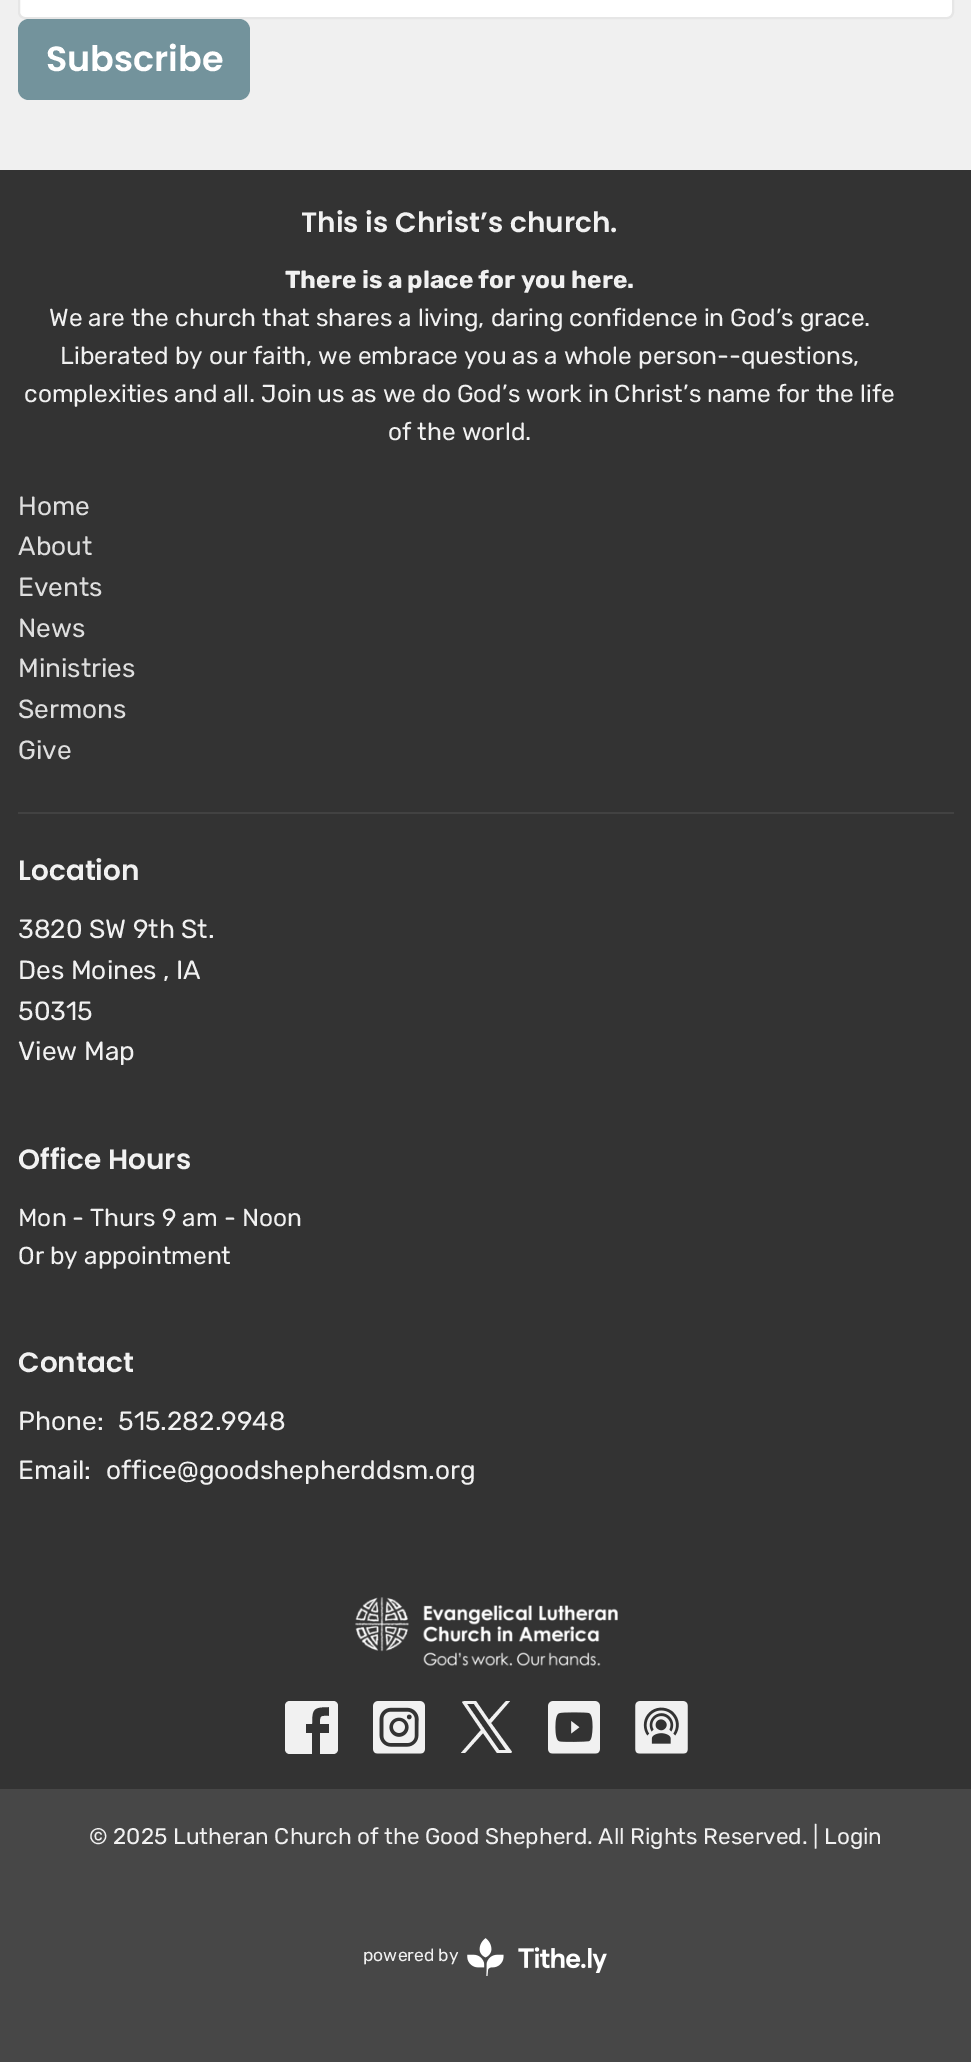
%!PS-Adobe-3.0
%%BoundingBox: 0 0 971 2062
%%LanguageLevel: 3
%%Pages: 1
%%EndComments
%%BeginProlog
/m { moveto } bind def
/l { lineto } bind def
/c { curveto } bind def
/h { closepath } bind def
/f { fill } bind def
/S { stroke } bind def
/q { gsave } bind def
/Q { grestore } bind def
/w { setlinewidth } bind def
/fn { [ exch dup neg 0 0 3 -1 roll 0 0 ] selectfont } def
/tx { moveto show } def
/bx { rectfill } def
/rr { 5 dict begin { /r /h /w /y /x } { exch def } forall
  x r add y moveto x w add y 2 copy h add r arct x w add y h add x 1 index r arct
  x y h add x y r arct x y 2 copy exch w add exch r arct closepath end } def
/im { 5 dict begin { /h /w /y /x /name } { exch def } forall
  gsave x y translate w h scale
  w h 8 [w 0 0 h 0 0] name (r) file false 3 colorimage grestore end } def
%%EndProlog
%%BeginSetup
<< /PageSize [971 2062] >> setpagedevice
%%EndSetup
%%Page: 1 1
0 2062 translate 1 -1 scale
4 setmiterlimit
0.941 setgray
0 0 971 2062 bx
1 setgray
19 -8 934 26 6 rr q f Q
0.902 setgray
2 w
S
0.451 0.576 0.612 setrgbcolor
18 19 232 81 11 rr f
/Poppins-SemiBold 35 fn
1 setgray
(Subscribe) 46 71 tx
0.2 setgray
0 170 971 1619 bx
/Poppins-SemiBold 28 fn
0.945 setgray
(This is Christ’s church.) 301 232 tx
/Rubik-Bold 24.5 fn
(There is a place for you here.) 285 288 tx
/Rubik-Regular 24.5 fn
(We are the church that shares a living, daring confidence in God’s grace.) 49 326 tx
(Liberated by our faith, we embrace you as a whole person--questions,) 60 364 tx
(complexities and all. Join us as we do God’s work in Christ’s name for the life) 24 402 tx
(of the world.) 388 440 tx
/Rubik-Regular 26.25 fn
0.871 setgray
(Home) 18 515 tx
(About) 18 555 tx
(Events) 18 596 tx
(News) 18 637 tx
(Ministries) 18 677 tx
(Sermons) 18 718 tx
(Give) 18 759 tx
0.259 setgray
18 812 936 2 bx
/Poppins-SemiBold 28 fn
0.945 setgray
(Location) 18 880 tx
/Rubik-Regular 26.25 fn
(3820 SW 9th St.) 18 938 tx
(Des Moines , IA) 18 979 tx
(50315) 18 1020 tx
(View Map) 18 1060 tx
/Poppins-SemiBold 28 fn
(Office Hours) 18 1169 tx
/Rubik-Regular 24.5 fn
(Mon - Thurs 9 am - Noon) 18 1226 tx
(Or by appointment) 18 1264 tx
/Poppins-SemiBold 28 fn
(Contact) 18 1372 tx
/Rubik-Regular 26.25 fn
(Phone:) 18 1430 tx
(515.282.9948) 118 1430 tx
(Email:) 18 1479 tx
(office@goodshepherddsm.org) 106 1479 tx
(image0.raw) 355 1597 263 69 im
329 1707 m 329 1716 l 321 1716 320 1715 320 1724 c 329 1724 l 329 1733 l 320 1733 l 320 1754 l 333 1754 l 336 1754 338 1752 338 1749 c 338 1706 l 338 1703 336 1701 333 1701 c 290 1701 l 287 1701 285 1703 285 1706 c 285 1749 l 285 1752 287 1754 290 1754 c 312 1754 l 312 1733 l 306 1733 l 306 1724 l 312 1724 l 312 1709 313 1707 329 1707 c h f
(image1.raw) 373 1701 52 53 im
q
460 1701 53 53 rectclip
491 1723 m 510 1701 l 506 1701 l 489 1720 l 476 1701 l 473 1701 465 1700 462 1702 c 481 1730 l 461 1753 l 462 1753 l 465 1753 l 483 1733 l 497 1753 l 511 1753 l 512 1752 l h 485 1730 m 499 1750 l 506 1750 l 474 1704 l 467 1704 l h eofill
Q
(image2.raw) 548 1701 52 53 im
(image3.raw) 635 1701 53 53 im
0.278 setgray
0 1789 971 273 bx
/Rubik-Regular 22.55 fn
0.945 setgray
(© 2025 Lutheran Church of the Good Shepherd. All Rights Reserved. | Login) 89 1844 tx
/Rubik-Regular 17.5 fn
(powered by) 363 1961 tx
(image4.raw) 467 1938 140 38 im
showpage
%%EOF
